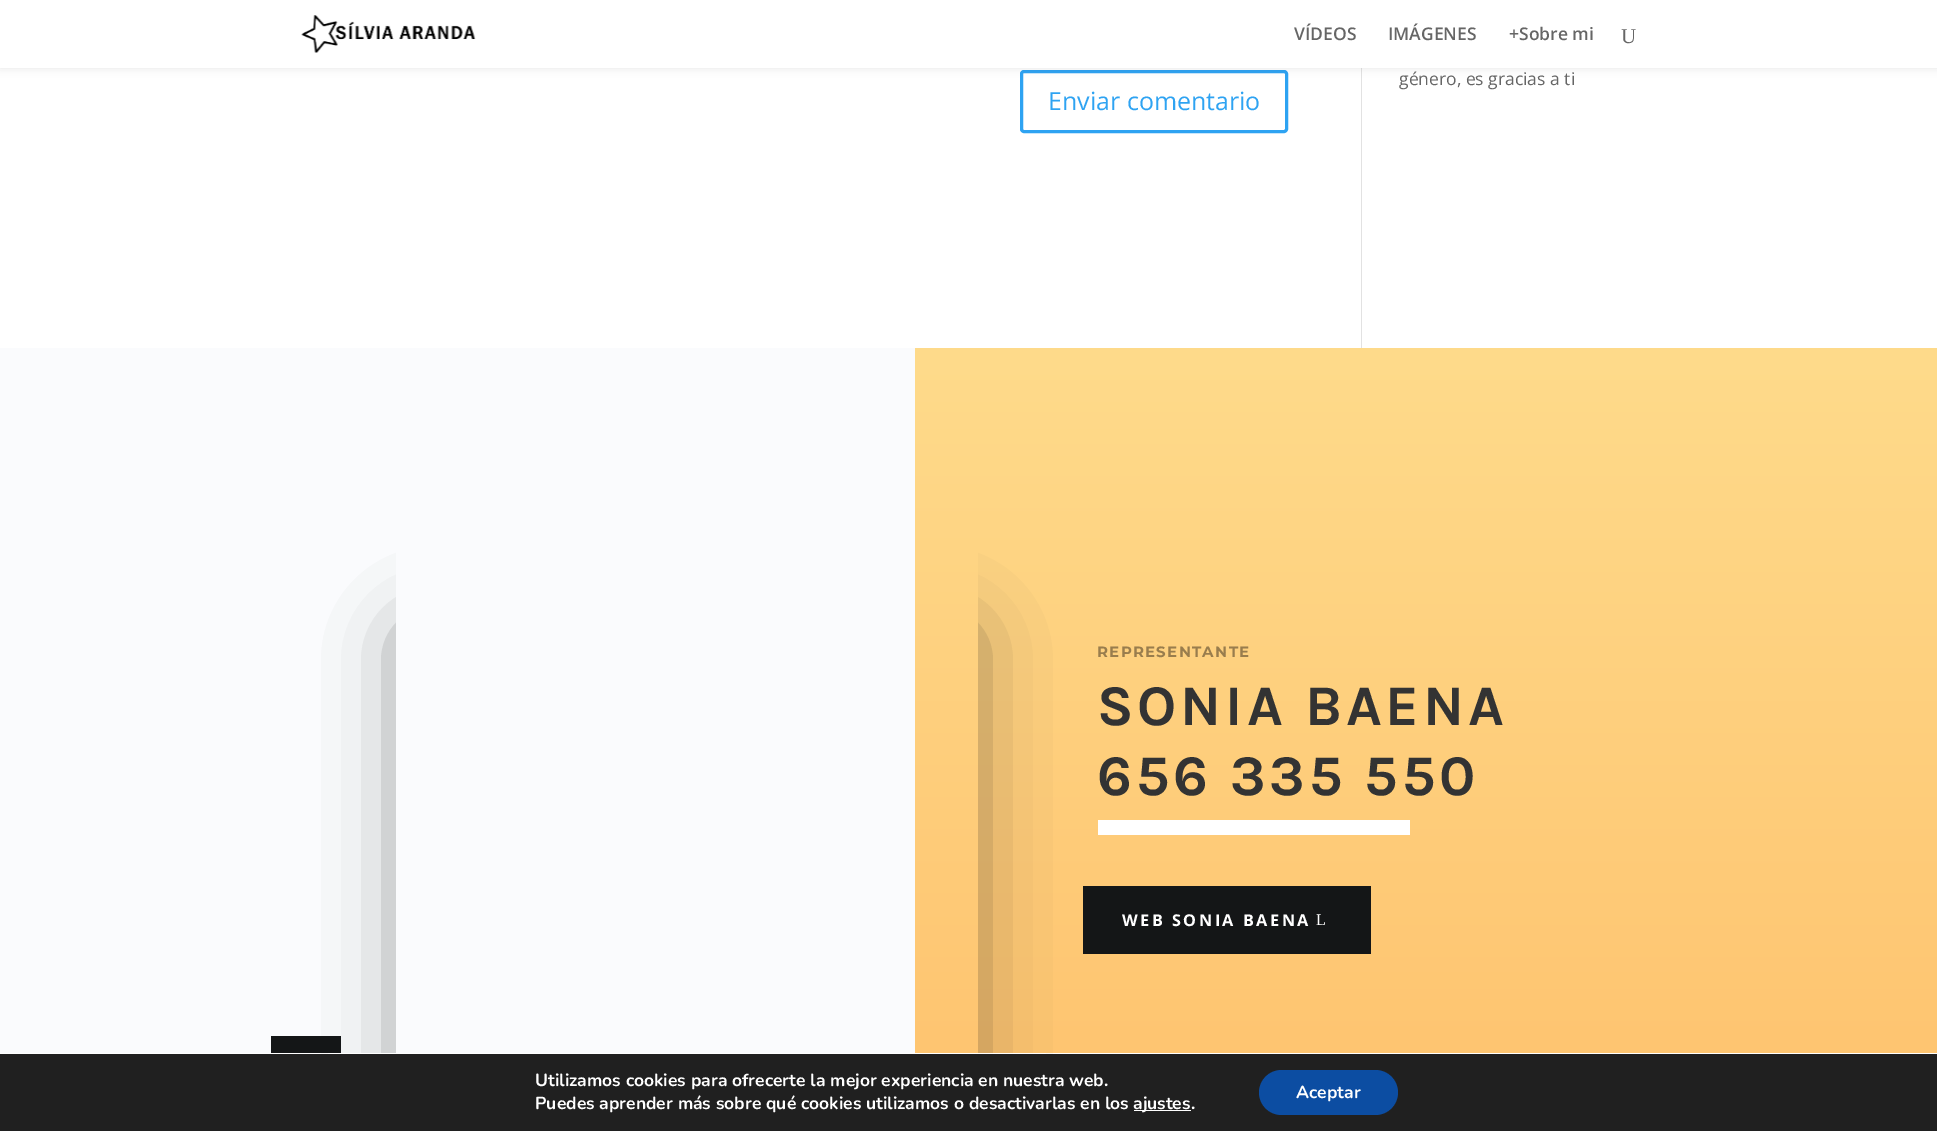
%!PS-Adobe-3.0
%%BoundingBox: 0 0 1937 1131
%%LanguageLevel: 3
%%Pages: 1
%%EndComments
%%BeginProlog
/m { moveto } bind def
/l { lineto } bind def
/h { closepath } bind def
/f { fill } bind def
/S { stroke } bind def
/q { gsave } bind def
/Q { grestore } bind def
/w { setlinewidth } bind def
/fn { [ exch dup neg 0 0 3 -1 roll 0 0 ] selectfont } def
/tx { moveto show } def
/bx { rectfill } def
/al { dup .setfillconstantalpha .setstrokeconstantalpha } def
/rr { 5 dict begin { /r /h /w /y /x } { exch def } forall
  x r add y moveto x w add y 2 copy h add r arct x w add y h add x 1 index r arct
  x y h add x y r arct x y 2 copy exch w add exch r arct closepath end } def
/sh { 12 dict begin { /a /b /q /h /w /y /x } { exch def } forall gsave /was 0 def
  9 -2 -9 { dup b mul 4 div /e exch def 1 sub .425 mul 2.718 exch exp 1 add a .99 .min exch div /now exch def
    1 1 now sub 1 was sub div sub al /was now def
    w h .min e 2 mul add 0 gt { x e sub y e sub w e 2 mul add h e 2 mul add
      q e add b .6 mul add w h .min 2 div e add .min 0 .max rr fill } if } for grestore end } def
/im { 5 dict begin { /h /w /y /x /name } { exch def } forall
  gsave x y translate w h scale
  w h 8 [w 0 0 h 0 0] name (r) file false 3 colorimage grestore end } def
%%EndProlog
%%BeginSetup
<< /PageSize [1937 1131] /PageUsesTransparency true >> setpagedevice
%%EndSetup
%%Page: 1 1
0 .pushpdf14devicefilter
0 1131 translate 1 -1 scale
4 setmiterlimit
1 setgray
0 0 1937 1131 bx
0.886 setgray
1361 68 1 280 bx
0.18 0.639 0.949 setrgbcolor
3 w
1021.5 71.5 265 60 2.5 rr S
0 setgray
0 0 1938 68 0 4.5 0.1 sh
1 setgray
0 0 1937 68 bx
(image0.raw) 301 15 175 38 im
/OpenSans-SemiBold 17.5 fn
0.4 setgray
(VÍDEOS) 1294 40 tx
(IMÁGENES) 1388 40 tx
(+Sobre mi) 1509 40 tx
/LiberationSerif-Regular 21 fn
(U) 1621 43 tx
/OpenSans-Regular 17.5 fn
(género, es gracias a ti) 1399 85 tx
/OpenSans-Regular 25 fn
0.18 0.639 0.949 setrgbcolor
(Enviar comentario) 1048 110 tx
q 915 348 m 1937 348 l 1937 1053 l 915 1053 l h clip newpath
<< /ShadingType 2 /ColorSpace /DeviceRGB /Coords [969 347 969 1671] /Extend [true true] /Function << /FunctionType 2 /Domain [0 1] /C0 [1 0.859 0.545] /C1 [0.992 0.694 0.357] /N 1 >> >> shfill Q
0.98 0.984 0.992 setrgbcolor
0 348 915 705 bx
q
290 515 m 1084 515 l 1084 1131 l 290 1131 l h 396 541 m 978 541 l 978 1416 l 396 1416 l h eoclip newpath
0.078 0.086 0.09 setrgbcolor
411 636 552 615 0 40 0.59 sh
Q
0.078 0.086 0.09 setrgbcolor
271 1036 70 17 bx
/Montserrat-Thin 15 fn
0.6 0.49 0.302 setrgbcolor
1097 657 m 1.25 0 (REPRESENTANTE) ashow
/Karla-Bold 57.5 fn
0.2 setgray
1097 725 m 3.75 0 (SONIA BAENA) ashow
1097 795 m 3.75 0 (656 335 550) ashow
1 setgray
1098 820 312 15 bx
0.078 0.086 0.09 setrgbcolor
1083 886 288 68 bx
/OpenSans-Bold 16.25 fn
1 setgray
1122 926 m 2.5 0 (WEB SONIA BAENA) ashow
/LiberationSerif-Regular 16.25 fn
1316 925 m 2.5 0 (L) ashow
0.125 setgray
0 1054 1937 77 bx
1 setgray
328 1053 718 1 bx
/Nunito-Bold 17.5 fn
(Utilizamos cookies para ofrecerte la mejor experiencia en nuestra web.) 535 1086 tx
(Puedes aprender más sobre qué cookies utilizamos o desactivarlas en los) 535 1109 tx
1134 1110 57 1 bx
(ajustes.) 1133 1109 tx
0.047 0.302 0.635 setrgbcolor
1259 1070 139 45 22.5 rr f
1 setgray
(Aceptar) 1296 1098 tx
.poppdf14devicefilter showpage
%%EOF
